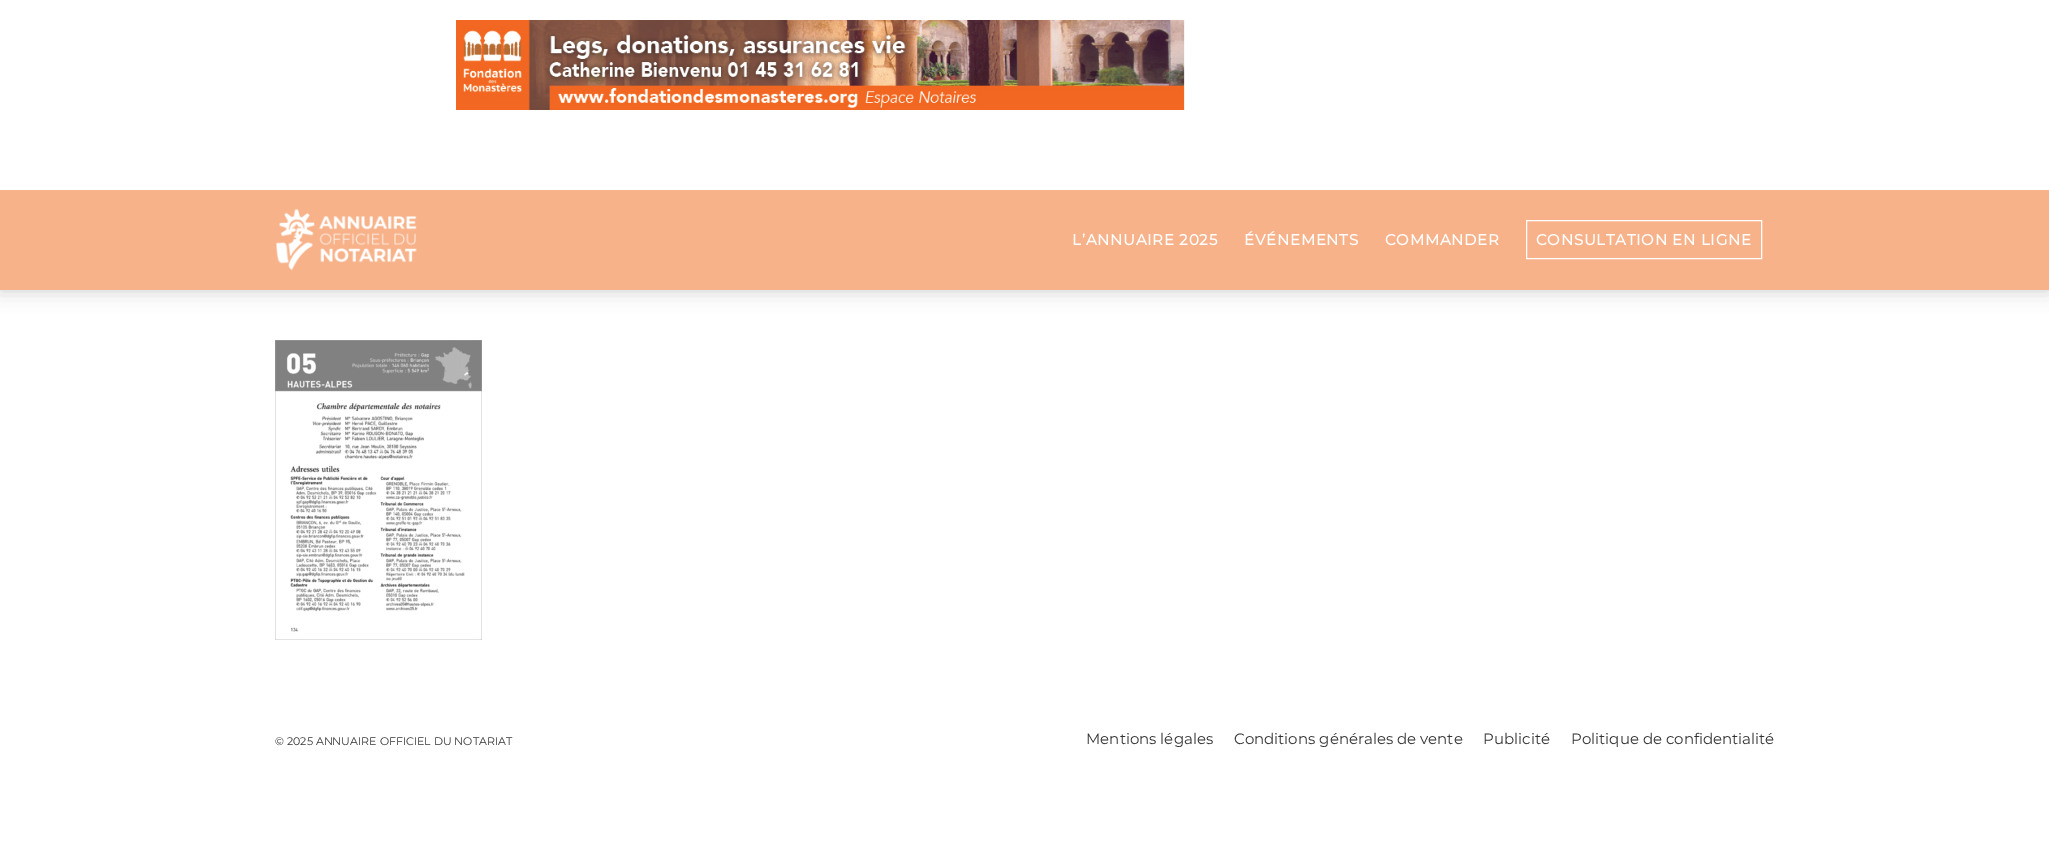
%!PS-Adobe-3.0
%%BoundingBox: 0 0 2049 842
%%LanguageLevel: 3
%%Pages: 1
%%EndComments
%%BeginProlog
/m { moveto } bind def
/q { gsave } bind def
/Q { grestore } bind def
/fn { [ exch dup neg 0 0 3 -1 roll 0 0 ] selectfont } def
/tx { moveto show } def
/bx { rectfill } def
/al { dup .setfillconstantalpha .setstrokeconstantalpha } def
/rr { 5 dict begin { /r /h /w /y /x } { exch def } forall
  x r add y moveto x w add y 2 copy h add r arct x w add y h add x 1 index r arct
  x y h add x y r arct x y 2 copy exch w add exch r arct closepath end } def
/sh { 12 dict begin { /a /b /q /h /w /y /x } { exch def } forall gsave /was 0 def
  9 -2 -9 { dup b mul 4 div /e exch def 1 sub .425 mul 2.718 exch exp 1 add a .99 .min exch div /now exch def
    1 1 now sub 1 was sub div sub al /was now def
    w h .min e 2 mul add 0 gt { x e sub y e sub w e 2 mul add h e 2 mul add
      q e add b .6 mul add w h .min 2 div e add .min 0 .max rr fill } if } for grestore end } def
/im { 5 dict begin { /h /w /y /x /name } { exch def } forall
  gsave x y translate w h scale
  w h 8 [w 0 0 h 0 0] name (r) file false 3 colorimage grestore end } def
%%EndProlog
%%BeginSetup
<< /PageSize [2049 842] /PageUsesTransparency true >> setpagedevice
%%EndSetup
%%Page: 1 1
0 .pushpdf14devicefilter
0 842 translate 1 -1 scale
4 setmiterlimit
1 setgray
0 0 2049 842 bx
(image0.raw) 456 20 729 90 im
q
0 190 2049 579 rectclip
0 setgray
0 190 2049 100 0 10 0.2 sh
Q
0.969 0.698 0.541 setrgbcolor
0 190 2049 100 bx
(image1.raw) 276 208 141 63 im
/Montserrat-Bold 15 fn
1 setgray
1072 245 m 0.75 0 (L’ANNUAIRE 2025) ashow
1244 245 m 0.75 0 (ÉVÉNEMENTS) ashow
1385 245 m 0.75 0 (COMMANDER) ashow
1526.5 220.5 235 38 rectstroke
1536 245 m 0.75 0 (CONSULTATION EN LIGNE) ashow
(image2.raw) 275 340 207 300 im
/Montserrat-Thin 11 fn
0.2 setgray
(© 2025 ANNUAIRE OFFICIEL DU NOTARIAT) 275 745 tx
/Montserrat-Thin 15 fn
(Mentions légales) 1086 744 tx
(Conditions générales de vente) 1234 744 tx
(Publicité) 1483 744 tx
(Politique de confidentialité) 1571 744 tx
.poppdf14devicefilter showpage
%%EOF
